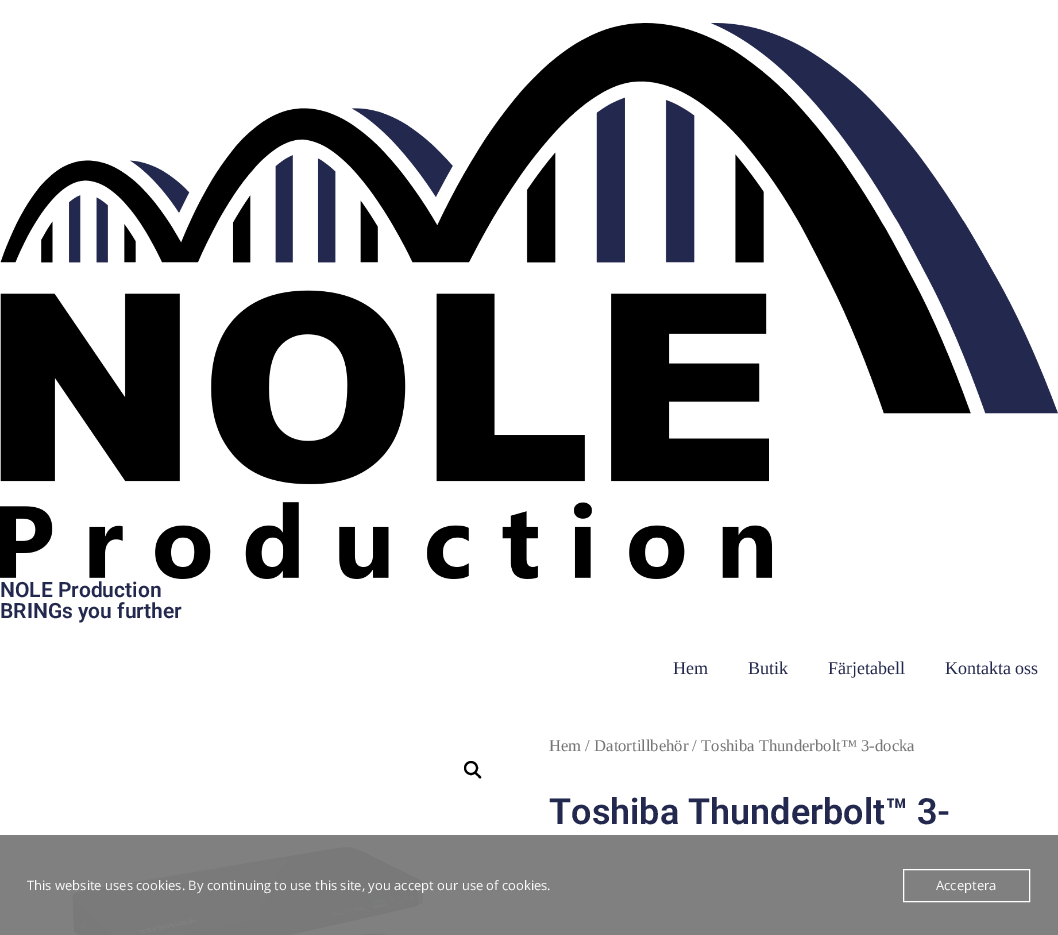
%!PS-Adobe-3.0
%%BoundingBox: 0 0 1058 935
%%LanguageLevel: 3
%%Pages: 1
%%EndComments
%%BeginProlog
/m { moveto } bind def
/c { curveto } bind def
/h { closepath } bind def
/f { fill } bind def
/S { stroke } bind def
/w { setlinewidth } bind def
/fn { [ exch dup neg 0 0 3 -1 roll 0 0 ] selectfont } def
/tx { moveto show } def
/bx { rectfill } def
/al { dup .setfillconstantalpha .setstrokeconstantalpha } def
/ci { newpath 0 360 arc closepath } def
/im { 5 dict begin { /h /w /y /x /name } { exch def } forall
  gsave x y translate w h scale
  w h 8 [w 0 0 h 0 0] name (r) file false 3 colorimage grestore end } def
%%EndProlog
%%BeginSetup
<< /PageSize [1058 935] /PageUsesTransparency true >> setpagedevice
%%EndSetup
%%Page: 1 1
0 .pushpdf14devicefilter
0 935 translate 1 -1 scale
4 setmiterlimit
1 setgray
0 0 1058 935 bx
(image0.raw) 0 23 1058 556 im
/Roboto-SemiBold 21 fn
0.137 0.161 0.306 setrgbcolor
(NOLE Production) 0 597 tx
(BRINGs you further) 0 618 tx
/LiberationSerif-Regular 18 fn
(Hem) 673 674 tx
(Butik) 748 674 tx
(Färjetabell) 828 674 tx
(Kontakta oss) 945 674 tx
0 setgray
2 w
471 768 6 ci S
475 772.5 m 476.5 771.5 478 774 478.5 774.5 c 479.5 775 482 777 481 778 c 479.5 779.5 478 776.5 477.5 776 c 476.5 775.5 474 773.5 475 772.5 c h f
(image1.raw) 71 846 353 89 im
/LiberationSerif-Regular 16.6 fn
0.463 setgray
(Hem / Datortillbehör / Toshiba Thunderbolt™ 3-docka) 549 751 tx
/Roboto-SemiBold 36 fn
0.137 0.161 0.306 setrgbcolor
(Toshiba Thunderbolt™ 3-) 549 824 tx
0.97 al
0.486 setgray
0 835 1058 100 bx
/OpenSans-Regular 13 fn
1 al
0.984 setgray
(This website uses cookies. By continuing to use this site, you accept our use of cookies.) 27 890 tx
1 setgray
1 w
903.5 869.5 126 32 rectstroke
0.984 setgray
(Acceptera) 936 890 tx
.poppdf14devicefilter showpage
%%EOF
